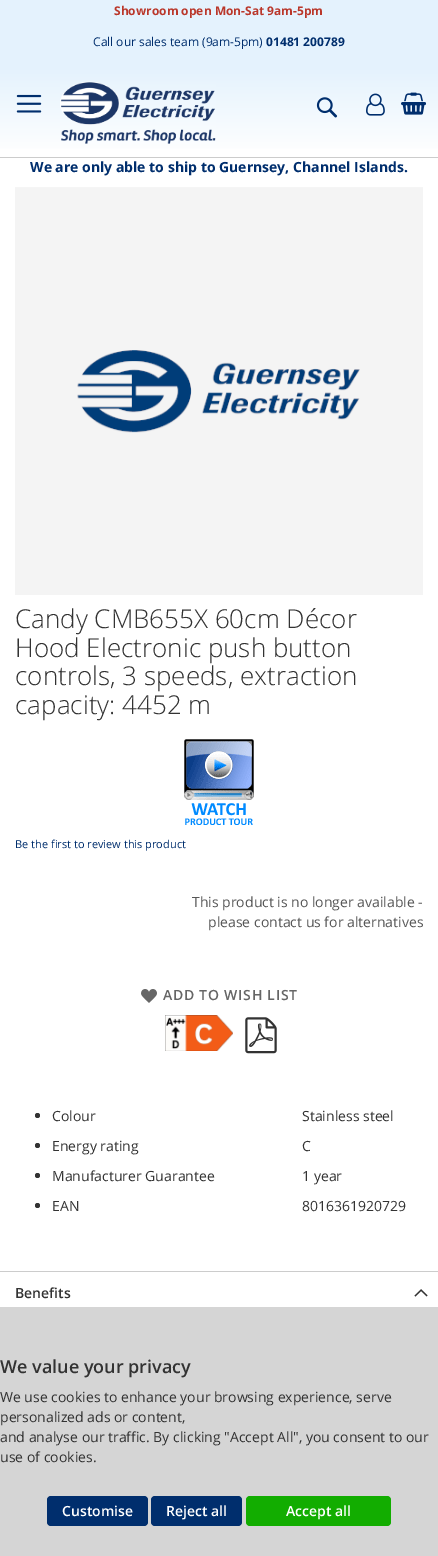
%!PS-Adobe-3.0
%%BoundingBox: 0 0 438 1556
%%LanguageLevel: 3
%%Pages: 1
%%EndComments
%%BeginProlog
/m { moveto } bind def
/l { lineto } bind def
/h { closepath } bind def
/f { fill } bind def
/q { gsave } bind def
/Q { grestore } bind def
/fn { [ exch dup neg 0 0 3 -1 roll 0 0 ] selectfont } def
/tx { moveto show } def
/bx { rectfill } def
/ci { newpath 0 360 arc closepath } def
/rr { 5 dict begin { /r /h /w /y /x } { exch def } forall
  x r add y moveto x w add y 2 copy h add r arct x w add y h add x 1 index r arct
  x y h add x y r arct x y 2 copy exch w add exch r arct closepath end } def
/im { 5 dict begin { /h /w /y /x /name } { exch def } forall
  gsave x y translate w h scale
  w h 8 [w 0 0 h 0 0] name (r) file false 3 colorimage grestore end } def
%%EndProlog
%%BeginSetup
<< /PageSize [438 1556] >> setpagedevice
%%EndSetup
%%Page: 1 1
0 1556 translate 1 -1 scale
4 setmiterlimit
1 setgray
0 0 438 1556 bx
0.835 setgray
0 1307 438 249 bx
0.894 0.949 0.992 setrgbcolor
0 0 438 67 bx
/OpenSans-Bold 12 fn
0.729 0.216 0.165 setrgbcolor
(Showroom open Mon-Sat 9am-5pm) 114 15 tx
/OpenSans-Regular 12 fn
0 0.18 0.427 setrgbcolor
(Call our sales team \(9am-5pm\)) 93 46 tx
/OpenSans-Bold 12 fn
(01481 200789) 266 46 tx
q 0 67 m 438 67 l 438 149 l 0 149 l h clip newpath
<< /ShadingType 2 /ColorSpace /DeviceRGB /Coords [219 67 219 157] /Extend [true true] /Function << /FunctionType 2 /Domain [0 1] /C0 [0.894 0.949 0.992] /C1 [1 1 1] /N 1 >> >> shfill Q
(image0.raw) 16 94 26 19 im
(image1.raw) 60 81 156 63 im
(image2.raw) 366 93 19 23 im
(image3.raw) 401 92 25 23 im
(image4.raw) 316 97 22 21 im
0.8 setgray
0 157 438 1 bx
/OpenSans-Bold 14 fn
0 0.18 0.427 setrgbcolor
(We are only able to ship to Guernsey, Channel Islands.) 30 172 tx
(image5.raw) 15 187 408 408 im
/OpenSans-Light 26 fn
0.2 setgray
(Candy CMB655X 60cm Décor) 15 628 tx
(Hood Electronic push button) 15 657 tx
(controls, 3 speeds, extraction) 15 685 tx
(capacity: 4452 m) 15 714 tx
(image6.raw) 184 739 70 86 im
/OpenSans-Regular 11 fn
0 0.18 0.427 setrgbcolor
(Be the first to review this product) 15 848 tx
/OpenSans-Regular 14 fn
0.341 setgray
(This product is no longer available -) 192 907 tx
(please contact us for alternatives) 208 927 tx
(image7.raw) 141 989 16 14 im
/OpenSans-SemiBold 14 fn
0.4 setgray
163 1000 m 0.75 0 (ADD TO WISH LIST) ashow
(image8.raw) 165 1015 68 36 im
(image9.raw) 245 1017 32 37 im
0.2 setgray
37.5 1115.5 2.5 ci f
/OpenSans-Regular 14 fn
(Colour) 52 1121 tx
(Stainless steel) 302 1121 tx
37.5 1145.5 2.5 ci f
(Energy rating) 52 1151 tx
(C) 302 1151 tx
37.5 1175.5 2.5 ci f
(Manufacturer Guarantee) 52 1181 tx
(1 year) 302 1181 tx
37.5 1205.5 2.5 ci f
(EAN) 52 1211 tx
(8016361920729) 302 1211 tx
0.8 setgray
0 1271 438 1 bx
/OpenSans-SemiBold 14 fn
0.2 setgray
(Benefits) 15 1298 tx
(image10.raw) 414 1289 14 8 im
/OpenSans-SemiBold 18 fn
(We value your privacy) 0 1373 tx
/OpenSans-Regular 14 fn
(We use cookies to enhance your browsing experience, serve) 0 1402 tx
(personalized ads or content,) 0 1422 tx
(and analyse our traffic. By clicking "Accept All", you consent to our) 0 1442 tx
(use of cookies.) 0 1462 tx
0 0.18 0.427 setrgbcolor
47 1496 101 30 4 rr f
/OpenSans-SemiBold 14 fn
1 setgray
(Customise) 62 1516 tx
0 0.18 0.427 setrgbcolor
151 1496 91 30 4 rr f
1 setgray
(Reject all) 166 1516 tx
0.071 0.678 0 setrgbcolor
246 1496 145 30 4 rr f
1 setgray
(Accept all) 286 1516 tx
showpage
%%EOF
